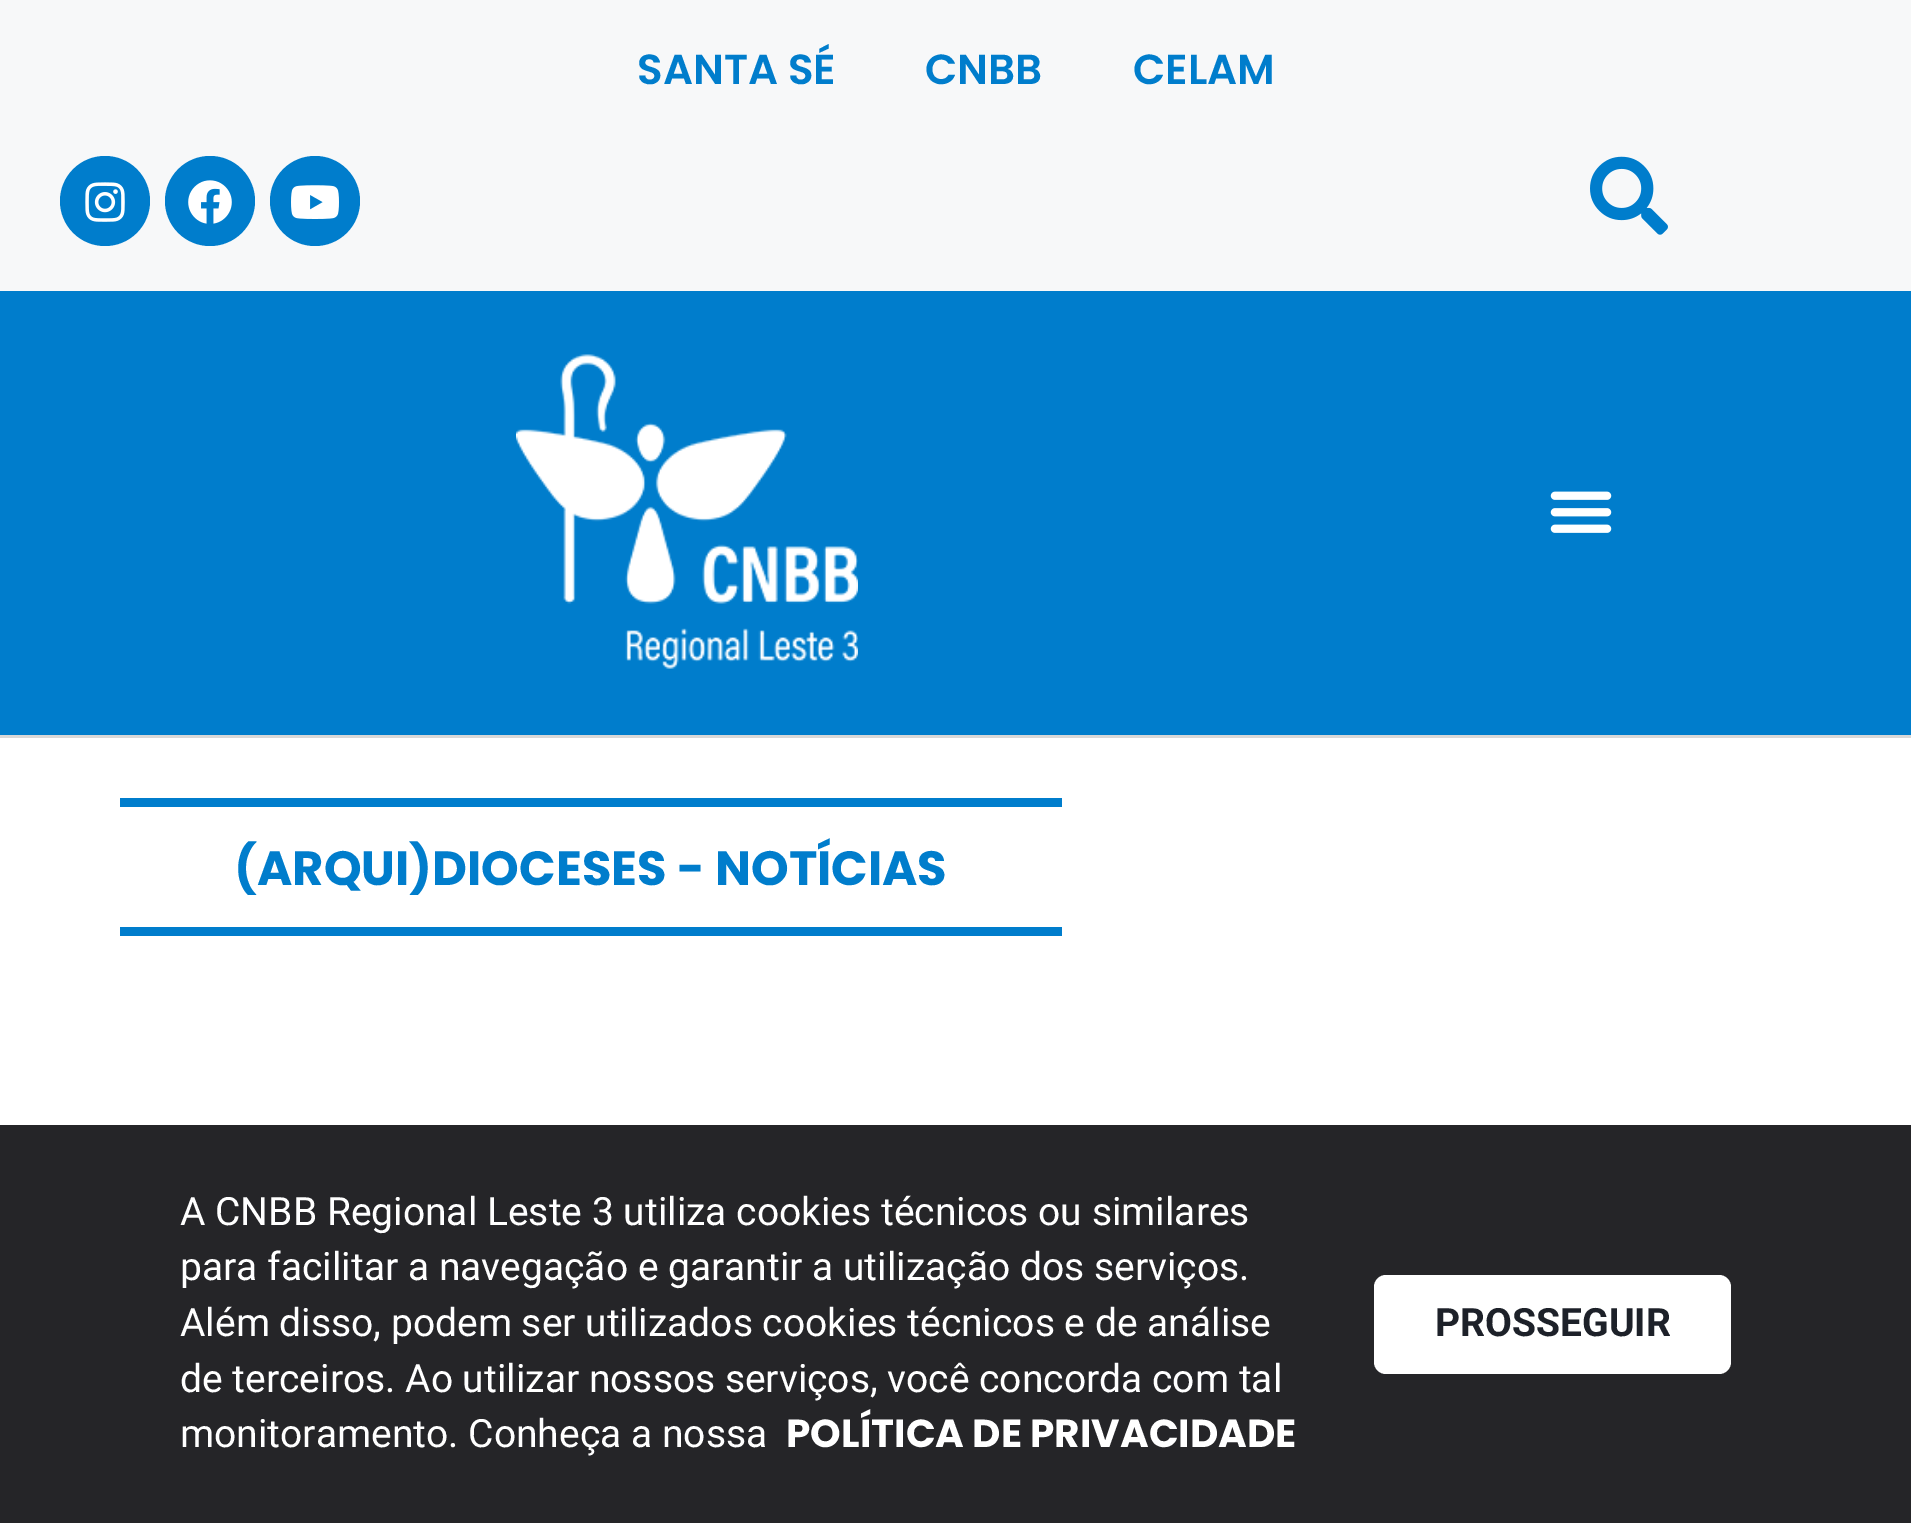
%!PS-Adobe-3.0
%%BoundingBox: 0 0 1911 1523
%%LanguageLevel: 3
%%Pages: 1
%%EndComments
%%BeginProlog
/f { fill } bind def
/fn { [ exch dup neg 0 0 3 -1 roll 0 0 ] selectfont } def
/tx { moveto show } def
/bx { rectfill } def
/ci { newpath 0 360 arc closepath } def
/rr { 5 dict begin { /r /h /w /y /x } { exch def } forall
  x r add y moveto x w add y 2 copy h add r arct x w add y h add x 1 index r arct
  x y h add x y r arct x y 2 copy exch w add exch r arct closepath end } def
/im { 5 dict begin { /h /w /y /x /name } { exch def } forall
  gsave x y translate w h scale
  w h 8 [w 0 0 h 0 0] name (r) file false 3 colorimage grestore end } def
%%EndProlog
%%BeginSetup
<< /PageSize [1911 1523] >> setpagedevice
%%EndSetup
%%Page: 1 1
0 1523 translate 1 -1 scale
4 setmiterlimit
0.969 0.973 0.976 setrgbcolor
0 0 1911 1523 bx
/Poppins-SemiBold 42 fn
0 0.49 0.8 setrgbcolor
(SANTA SÉ) 637 84 tx
(CNBB) 925 84 tx
(CELAM) 1133 84 tx
105 201 45 ci f
(image0.raw) 85 182 40 40 im
210 201 45 ci f
(image1.raw) 188 180 44 44 im
315 201 45 ci f
(image2.raw) 291 185 48 34 im
(image3.raw) 1590 156 78 79 im
0 291 1911 444 bx
0.847 setgray
0 735 1911 3 bx
(image4.raw) 516 354 342 315 im
(image5.raw) 1550 491 62 42 im
1 setgray
0 738 1911 387 bx
0 0.49 0.8 setrgbcolor
120 798 942 9 bx
120 927 942 9 bx
/Poppins-Bold 48 fn
(\(ARQUI\)DIOCESES - NOTÍCIAS) 234 885 tx
0.145 0.145 0.157 setrgbcolor
0 1125 1911 398 bx
/Roboto-Regular 39 fn
1 setgray
(A CNBB Regional Leste 3 utiliza cookies técnicos ou similares) 180 1225 tx
(para facilitar a navegação e garantir a utilização dos serviços.) 180 1280 tx
(Além disso, podem ser utilizados cookies técnicos e de análise) 180 1336 tx
(de terceiros. Ao utilizar nossos serviços, você concorda com tal) 180 1392 tx
(monitoramento. Conheça a nossa) 180 1447 tx
/Poppins-Bold 39 fn
(POLÍTICA DE PRIVACIDADE) 786 1447 tx
1374 1275 357 99 12 rr f
/Roboto-Bold 39 fn
0.114 0.129 0.161 setrgbcolor
(PROSSEGUIR) 1435 1336 tx
showpage
%%EOF
